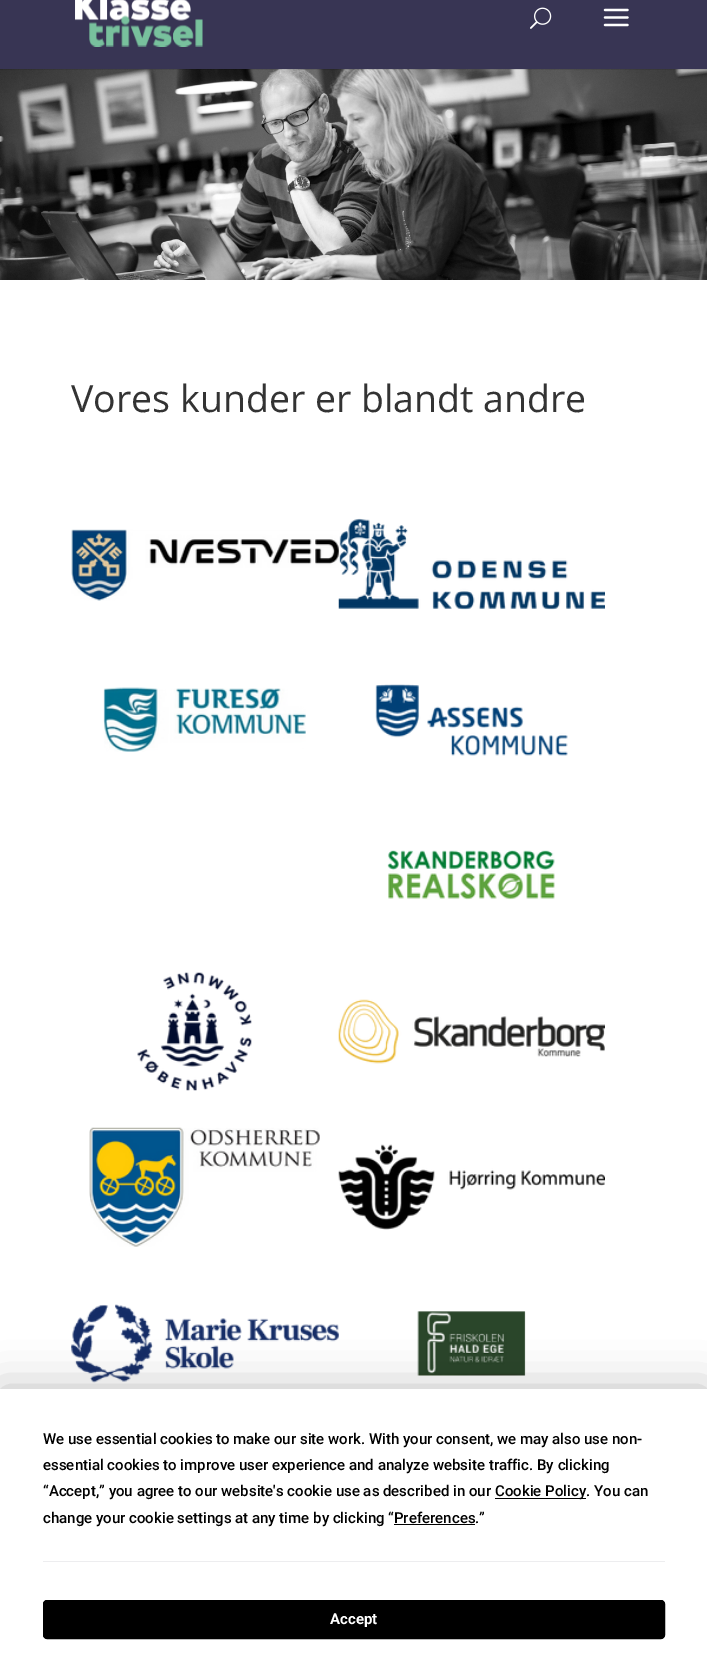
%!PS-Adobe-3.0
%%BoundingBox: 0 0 707 1676
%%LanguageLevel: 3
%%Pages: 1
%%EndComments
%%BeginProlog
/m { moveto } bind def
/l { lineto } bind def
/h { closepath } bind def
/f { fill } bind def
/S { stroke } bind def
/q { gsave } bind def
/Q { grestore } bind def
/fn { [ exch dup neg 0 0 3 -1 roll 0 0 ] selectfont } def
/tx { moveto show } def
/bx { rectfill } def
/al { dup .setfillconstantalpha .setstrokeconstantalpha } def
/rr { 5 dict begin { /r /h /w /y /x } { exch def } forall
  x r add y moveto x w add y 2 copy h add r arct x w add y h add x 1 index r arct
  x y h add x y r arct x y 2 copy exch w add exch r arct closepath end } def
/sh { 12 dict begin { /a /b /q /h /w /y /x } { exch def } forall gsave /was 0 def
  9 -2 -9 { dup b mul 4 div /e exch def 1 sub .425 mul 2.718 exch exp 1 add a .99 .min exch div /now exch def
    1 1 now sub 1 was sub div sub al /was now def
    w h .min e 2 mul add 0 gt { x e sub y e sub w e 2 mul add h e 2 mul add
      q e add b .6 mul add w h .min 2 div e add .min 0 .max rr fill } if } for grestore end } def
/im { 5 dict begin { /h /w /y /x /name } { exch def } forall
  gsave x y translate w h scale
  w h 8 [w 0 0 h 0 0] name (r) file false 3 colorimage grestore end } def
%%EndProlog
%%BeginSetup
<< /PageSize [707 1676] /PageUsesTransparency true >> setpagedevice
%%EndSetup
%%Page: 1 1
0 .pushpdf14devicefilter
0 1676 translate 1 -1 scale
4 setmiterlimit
1 setgray
0 0 707 1676 bx
(image3.raw) 0 69 707 211 im
0.1 al
0 setgray
0 69 m 0 70 l 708 70 l 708 -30 l 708 69 l h f
1 al
0.22 0.208 0.329 setrgbcolor
0 0 707 69 bx
(image0.raw) 75 0 128 47 im
(image1.raw) 530 7 22 22 im
(image2.raw) 603 8 26 19 im
/OpenSans-Regular 37.5 fn
0.2 setgray
(Vores kunder er blandt andre) 71 412 tx
(image4.raw) 71 529 268 72 im
(image5.raw) 103 687 203 65 im
(image6.raw) 338 518 267 92 im
(image7.raw) 375 684 193 72 im
(image8.raw) 387 850 168 50 im
(image9.raw) 137 972 115 119 im
(image10.raw) 89 1127 231 120 im
(image11.raw) 71 1304 268 79 im
(image12.raw) 338 999 267 65 im
(image13.raw) 338 1144 267 86 im
(image14.raw) 417 1311 109 65 im
0 setgray
0 1389 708 287 0 22 0.25 sh
1 setgray
0 1389 707 287 bx
/Roboto-Medium 15 fn
0 setgray
(We use essential cookies to make our site work. With your consent, we may also use non-) 43 1444 tx
(essential cookies to improve user experience and analyze website traffic. By clicking) 43 1470 tx
(“Accept,” you agree to our website's cookie use as described in our) 43 1496 tx
495 1498 91 1 bx
(Cookie Policy. You can) 495 1496 tx
(change your cookie settings at any time by clicking “Preferences.”) 43 1523 tx
394 1524 81 1 bx
0.929 0.929 0.937 setrgbcolor
43 1561 622 1 bx
0 setgray
43.5 1600.5 621 38 3.5 rr q f Q
S
/Roboto-Bold 15 fn
1 setgray
(Accept) 330 1624 tx
.poppdf14devicefilter showpage
%%EOF
